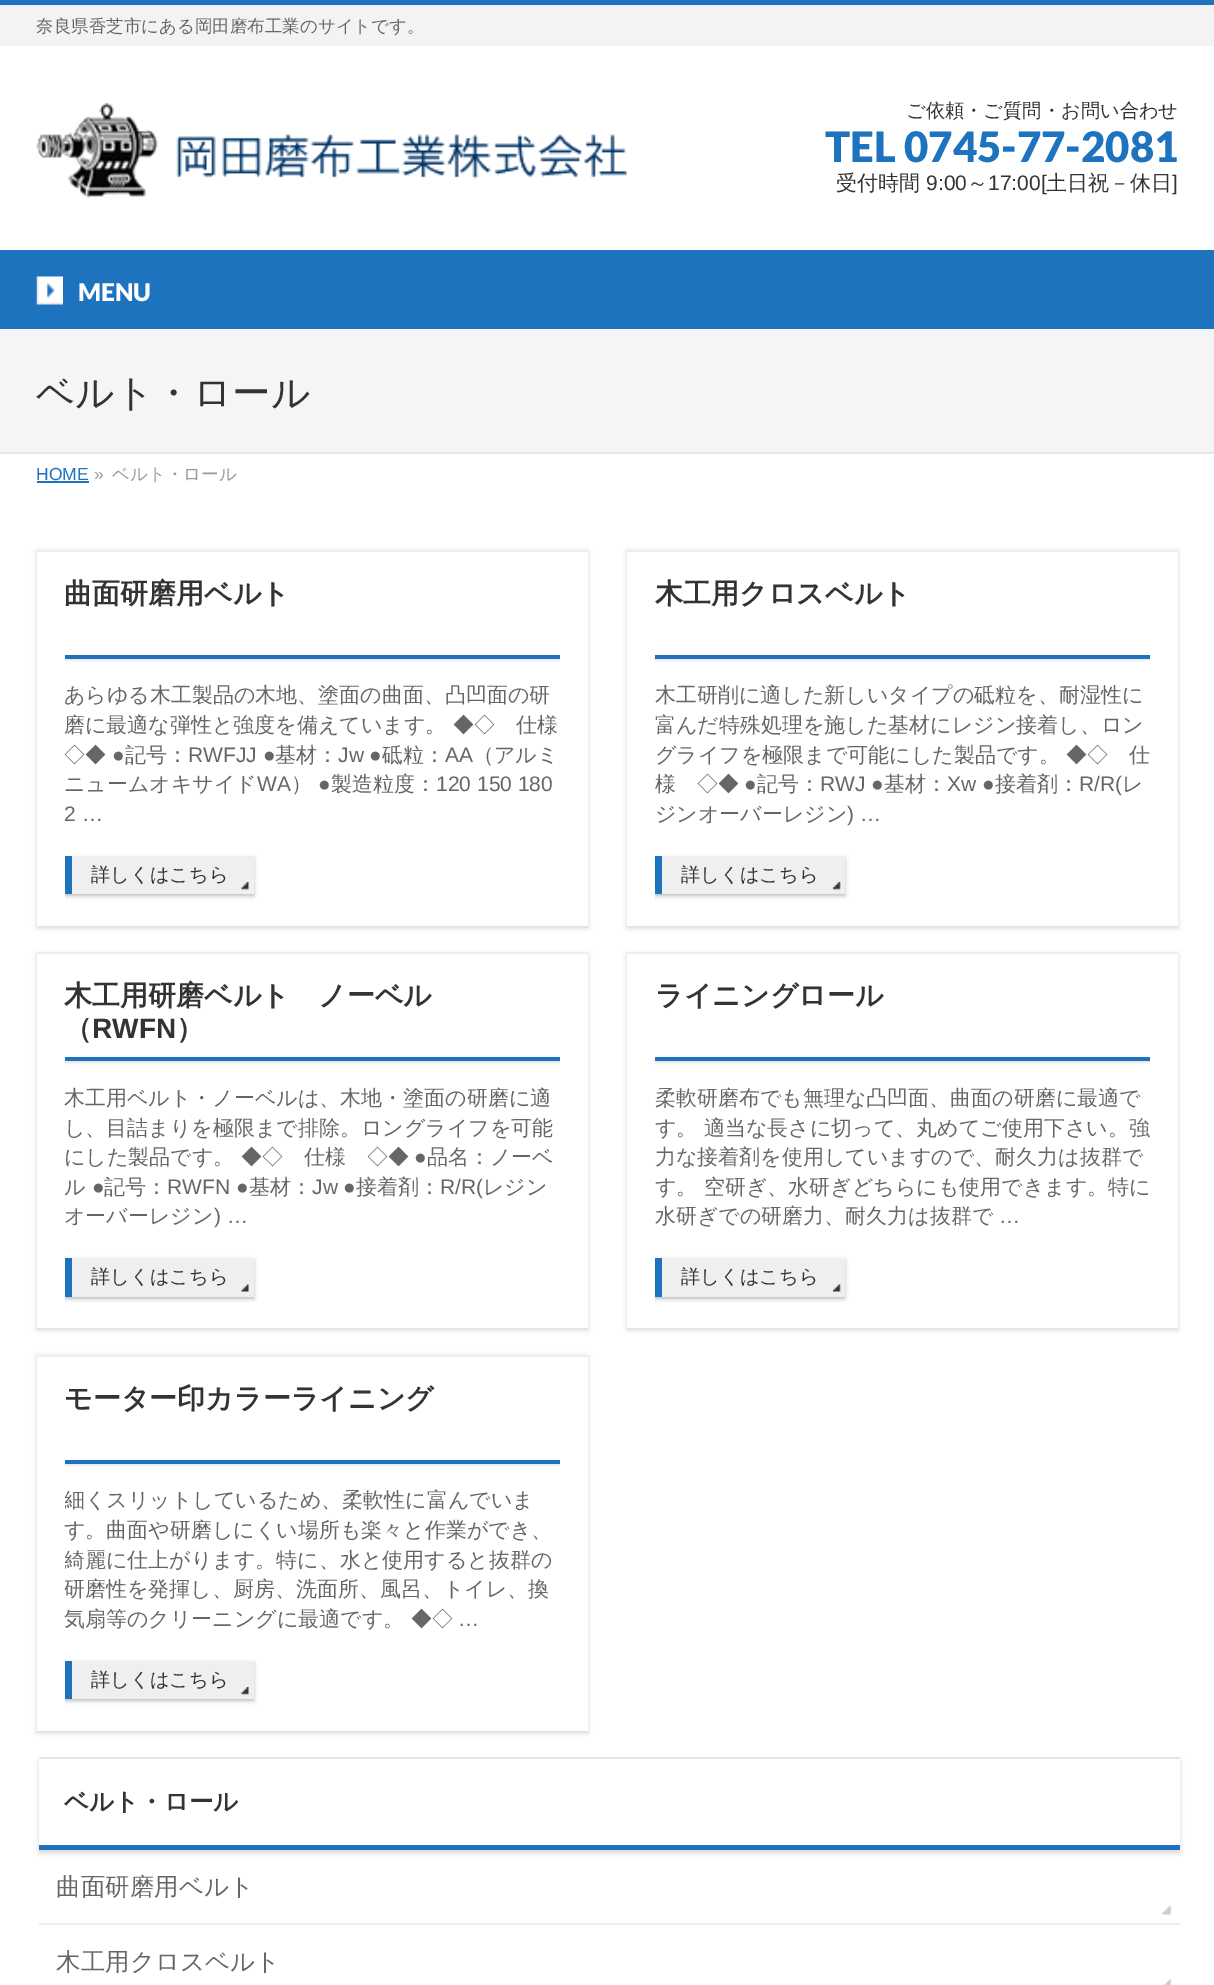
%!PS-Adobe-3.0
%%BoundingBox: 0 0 1214 1985
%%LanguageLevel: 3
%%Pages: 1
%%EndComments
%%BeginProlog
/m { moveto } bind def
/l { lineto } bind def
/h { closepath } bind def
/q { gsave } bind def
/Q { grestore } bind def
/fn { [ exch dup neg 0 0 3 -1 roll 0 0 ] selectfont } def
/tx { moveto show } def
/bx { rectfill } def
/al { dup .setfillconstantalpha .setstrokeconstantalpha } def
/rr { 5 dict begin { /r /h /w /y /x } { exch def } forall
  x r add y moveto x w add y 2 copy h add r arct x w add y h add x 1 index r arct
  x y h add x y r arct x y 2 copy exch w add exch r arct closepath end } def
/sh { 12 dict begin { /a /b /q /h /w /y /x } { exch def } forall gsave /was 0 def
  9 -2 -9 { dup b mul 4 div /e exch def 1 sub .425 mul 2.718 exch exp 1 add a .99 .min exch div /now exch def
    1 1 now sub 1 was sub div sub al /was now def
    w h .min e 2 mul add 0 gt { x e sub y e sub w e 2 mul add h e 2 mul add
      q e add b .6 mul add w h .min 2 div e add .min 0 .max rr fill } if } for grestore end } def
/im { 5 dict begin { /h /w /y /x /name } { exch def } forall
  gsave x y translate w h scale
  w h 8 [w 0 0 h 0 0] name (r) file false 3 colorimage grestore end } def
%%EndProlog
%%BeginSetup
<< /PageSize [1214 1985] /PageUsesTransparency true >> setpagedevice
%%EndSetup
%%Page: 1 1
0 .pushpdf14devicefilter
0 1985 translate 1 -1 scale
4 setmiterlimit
1 setgray
0 0 1214 1985 bx
0.953 setgray
0 5 1214 41 bx
0.118 0.451 0.745 setrgbcolor
0 0 1214 5 bx
/WenQuanYiZenHei-Medium 17.5 fn
0.4 setgray
(奈良県香芝市にある岡田磨布工業のサイトです。) 36 32 tx
(image0.raw) 36 103 591 95 im
/WenQuanYiZenHei-Medium 19.25 fn
0.2 setgray
(ご依頼・ご質問・お問い合わせ) 906 117 tx
/Lato-Black 42 fn
0.118 0.451 0.745 setrgbcolor
(TEL 0745-77-2081) 825 162 tx
/WenQuanYiZenHei-Medium 21 fn
0.2 setgray
(受付時間) 836 190 tx
/LiberationSans-Regular 21 fn
(9:00) 926 190 tx
/WenQuanYiZenHei-Medium 21 fn
(～) 967 190 tx
/LiberationSans-Regular 21 fn
(17:00[) 988 190 tx
/WenQuanYiZenHei-Medium 21 fn
(土日祝－休日) 1046 190 tx
/LiberationSans-Regular 21 fn
(]) 1172 190 tx
0.118 0.451 0.745 setrgbcolor
0 250 1214 79 bx
(image1.raw) 36 276 27 29 im
/Lato-Black 24.5 fn
1 setgray
(MENU) 78 301 tx
0.961 setgray
0 329 1214 123 bx
0.898 setgray
0 452 1214 2 bx
/WenQuanYiZenHei-Medium 38.5 fn
0.2 setgray
(ベルト・ロール) 36 406 tx
/LiberationSans-Regular 17.5 fn
0.118 0.451 0.745 setrgbcolor
(HOME) 36 480 tx
37 481 52 2 bx
0.6 setgray
(») 94 480 tx
/WenQuanYiZenHei-Medium 17.5 fn
(ベルト・ロール) 112 480 tx
q
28 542 m 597 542 l 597 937 l 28 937 l h 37 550 m 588 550 l 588 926 l 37 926 l h eoclip newpath
0 setgray
37 551 551 377 0 2.5 0.15 sh
Q
0.933 setgray
37 550 551 2 bx
(image2.raw) 64 658 496 4 im
0.118 0.451 0.745 setrgbcolor
65 655 495 4 bx
/WenQuanYiZenHei-Bold 28 fn
0.2 setgray
(曲面研磨用ベルト) 64 603 tx
/WenQuanYiZenHei-Medium 21 fn
0.4 setgray
(あらゆる木工製品の木地、塗面の曲面、凸凹面の研) 64 702 tx
(磨に最適な弾性と強度を備えています。 ◆◇　仕様) 64 732 tx
(◇◆) 64 762 tx
/LiberationSans-Regular 21 fn
(●) 112 762 tx
/WenQuanYiZenHei-Medium 21 fn
(記号：) 125 762 tx
/LiberationSans-Regular 21 fn
(RWFJJ ●) 188 762 tx
/WenQuanYiZenHei-Medium 21 fn
(基材：) 275 762 tx
/LiberationSans-Regular 21 fn
(Jw ●) 338 762 tx
/WenQuanYiZenHei-Medium 21 fn
(砥粒：) 382 762 tx
/LiberationSans-Regular 21 fn
(AA) 445 762 tx
/WenQuanYiZenHei-Medium 21 fn
(（アルミ) 473 762 tx
(ニュームオキサイド) 64 791 tx
/LiberationSans-Regular 21 fn
(WA) 257 791 tx
/WenQuanYiZenHei-Medium 21 fn
(）) 291 791 tx
/LiberationSans-Regular 21 fn
(●) 318 791 tx
/WenQuanYiZenHei-Medium 21 fn
(製造粒度：) 331 791 tx
/LiberationSans-Regular 21 fn
(120 150 180) 436 791 tx
(2 …) 64 821 tx
q
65 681 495 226 rectclip
0 setgray
65 858 189 38 0 2 0.25 sh
Q
0.937 setgray
72 856 182 38 bx
(image3.raw) 241 882 8 8 im
0.118 0.451 0.745 setrgbcolor
65 856 7 38 bx
/WenQuanYiZenHei-Medium 19.25 fn
0.2 setgray
(詳しくはこちら) 91 881 tx
q
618 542 m 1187 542 l 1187 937 l 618 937 l h 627 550 m 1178 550 l 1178 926 l 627 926 l h eoclip newpath
0 setgray
627 551 551 377 0 2.5 0.15 sh
Q
0.933 setgray
627 550 551 2 bx
(image4.raw) 654 658 496 4 im
0.118 0.451 0.745 setrgbcolor
655 655 495 4 bx
/WenQuanYiZenHei-Bold 28 fn
0.2 setgray
(木工用クロスベルト) 655 603 tx
/WenQuanYiZenHei-Medium 21 fn
0.4 setgray
(木工研削に適した新しいタイプの砥粒を、耐湿性に) 655 702 tx
(富んだ特殊処理を施した基材にレジン接着し、ロン) 655 732 tx
(グライフを極限まで可能にした製品です。 ◆◇　仕) 655 762 tx
(様　◇◆) 655 791 tx
/LiberationSans-Regular 21 fn
(●) 744 791 tx
/WenQuanYiZenHei-Medium 21 fn
(記号：) 757 791 tx
/LiberationSans-Regular 21 fn
(RWJ ●) 820 791 tx
/WenQuanYiZenHei-Medium 21 fn
(基材：) 884 791 tx
/LiberationSans-Regular 21 fn
(Xw ●) 947 791 tx
/WenQuanYiZenHei-Medium 21 fn
(接着剤：) 995 791 tx
/LiberationSans-Regular 21 fn
(R/R\() 1079 791 tx
/WenQuanYiZenHei-Medium 21 fn
(レ) 1122 791 tx
(ジンオーバーレジン) 655 821 tx
/LiberationSans-Regular 21 fn
(\) …) 847 821 tx
q
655 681 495 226 rectclip
0 setgray
655 858 190 38 0 2 0.25 sh
Q
0.937 setgray
662 856 183 38 bx
(image5.raw) 833 882 8 8 im
0.118 0.451 0.745 setrgbcolor
655 856 7 38 bx
/WenQuanYiZenHei-Medium 19.25 fn
0.2 setgray
(詳しくはこちら) 681 881 tx
q
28 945 m 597 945 l 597 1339 l 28 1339 l h 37 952 m 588 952 l 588 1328 l 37 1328 l h eoclip newpath
0 setgray
37 954 551 376 0 2.5 0.15 sh
Q
0.933 setgray
37 952 551 2 bx
(image6.raw) 64 1061 496 4 im
0.118 0.451 0.745 setrgbcolor
65 1057 495 4 bx
/WenQuanYiZenHei-Bold 28 fn
0.2 setgray
(木工用研磨ベルト　ノーベル) 64 1005 tx
(（) 64 1038 tx
/LiberationSans-Bold 28 fn
(RWFN) 92 1038 tx
/WenQuanYiZenHei-Bold 28 fn
(）) 176 1038 tx
/WenQuanYiZenHei-Medium 21 fn
0.4 setgray
(木工用ベルト・ノーベルは、木地・塗面の研磨に適) 64 1105 tx
(し、目詰まりを極限まで排除。ロングライフを可能) 64 1135 tx
(にした製品です。 ◆◇　仕様　◇◆) 64 1164 tx
/LiberationSans-Regular 21 fn
(●) 414 1164 tx
/WenQuanYiZenHei-Medium 21 fn
(品名：ノーベ) 427 1164 tx
(ル) 64 1194 tx
/LiberationSans-Regular 21 fn
(●) 92 1194 tx
/WenQuanYiZenHei-Medium 21 fn
(記号：) 104 1194 tx
/LiberationSans-Regular 21 fn
(RWFN ●) 167 1194 tx
/WenQuanYiZenHei-Medium 21 fn
(基材：) 249 1194 tx
/LiberationSans-Regular 21 fn
(Jw ●) 312 1194 tx
/WenQuanYiZenHei-Medium 21 fn
(接着剤：) 356 1194 tx
/LiberationSans-Regular 21 fn
(R/R\() 440 1194 tx
/WenQuanYiZenHei-Medium 21 fn
(レジン) 483 1194 tx
(オーバーレジン) 64 1223 tx
/LiberationSans-Regular 21 fn
(\) …) 214 1223 tx
q
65 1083 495 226 rectclip
0 setgray
65 1260 189 39 0 2 0.25 sh
Q
0.937 setgray
72 1258 182 39 bx
(image7.raw) 241 1284 8 8 im
0.118 0.451 0.745 setrgbcolor
65 1258 7 39 bx
/WenQuanYiZenHei-Medium 19.25 fn
0.2 setgray
(詳しくはこちら) 91 1283 tx
q
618 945 m 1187 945 l 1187 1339 l 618 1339 l h 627 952 m 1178 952 l 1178 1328 l 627 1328 l h eoclip newpath
0 setgray
627 954 551 376 0 2.5 0.15 sh
Q
0.933 setgray
627 952 551 2 bx
(image8.raw) 654 1060 496 5 im
0.118 0.451 0.745 setrgbcolor
655 1057 495 4 bx
/WenQuanYiZenHei-Bold 28 fn
0.2 setgray
(ライニングロール) 655 1005 tx
/WenQuanYiZenHei-Medium 21 fn
0.4 setgray
(柔軟研磨布でも無理な凸凹面、曲面の研磨に最適で) 655 1105 tx
(す。 適当な長さに切って、丸めてご使用下さい。強) 655 1135 tx
(力な接着剤を使用していますので、耐久力は抜群で) 655 1164 tx
(す。 空研ぎ、水研ぎどちらにも使用できます。特に) 655 1194 tx
(水研ぎでの研磨力、耐久力は抜群で) 655 1223 tx
/LiberationSans-Regular 21 fn
(…) 999 1223 tx
q
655 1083 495 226 rectclip
0 setgray
655 1260 190 39 0 2 0.25 sh
Q
0.937 setgray
662 1258 183 39 bx
(image9.raw) 833 1284 8 8 im
0.118 0.451 0.745 setrgbcolor
655 1258 7 39 bx
/WenQuanYiZenHei-Medium 19.25 fn
0.2 setgray
(詳しくはこちら) 681 1283 tx
q
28 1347 m 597 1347 l 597 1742 l 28 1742 l h 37 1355 m 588 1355 l 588 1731 l 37 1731 l h eoclip newpath
0 setgray
37 1356 551 377 0 2.5 0.15 sh
Q
0.933 setgray
37 1355 551 2 bx
(image2.raw) 64 1463 496 4 im
0.118 0.451 0.745 setrgbcolor
65 1460 495 4 bx
/WenQuanYiZenHei-Bold 28 fn
0.2 setgray
(モーター印カラーライニング) 64 1408 tx
q
65 1486 495 226 rectclip
/WenQuanYiZenHei-Medium 21 fn
0.4 setgray
(細くスリットしているため、柔軟性に富んでいま) 64 1507 tx
Q
/WenQuanYiZenHei-Medium 21 fn
0.4 setgray
(す。曲面や研磨しにくい場所も楽々と作業ができ、) 64 1537 tx
q
65 1486 495 226 rectclip
(綺麗に仕上がります。特に、水と使用すると抜群の) 64 1567 tx
Q
(研磨性を発揮し、厨房、洗面所、風呂、トイレ、換) 64 1596 tx
(気扇等のクリーニングに最適です。 ◆◇) 64 1626 tx
/LiberationSans-Regular 21 fn
(…) 458 1626 tx
q
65 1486 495 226 rectclip
0 setgray
65 1663 189 38 0 2 0.25 sh
Q
0.937 setgray
72 1661 182 38 bx
(image3.raw) 241 1687 8 8 im
0.118 0.451 0.745 setrgbcolor
65 1661 7 38 bx
/WenQuanYiZenHei-Medium 19.25 fn
0.2 setgray
(詳しくはこちら) 91 1686 tx
q
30 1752 m 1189 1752 l 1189 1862 l 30 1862 l h 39 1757 m 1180 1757 l 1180 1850 l 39 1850 l h eoclip newpath
0 setgray
39 1761 1141 92 0 2.5 0.15 sh
Q
0.898 setgray
39 1757 1141 2 bx
0.118 0.451 0.745 setrgbcolor
39 1845 1141 5 bx
/WenQuanYiZenHei-Bold 24.5 fn
0.2 setgray
(ベルト・ロール) 64 1810 tx
0.933 setgray
39 1923 1141 2 bx
(image10.raw) 1162 1905 10 10 im
/WenQuanYiZenHei-Medium 24.5 fn
0.4 setgray
(曲面研磨用ベルト) 56 1895 tx
(image11.raw) 1163 1979 9 6 im
(木工用クロスベルト) 56 1970 tx
.poppdf14devicefilter showpage
%%EOF
